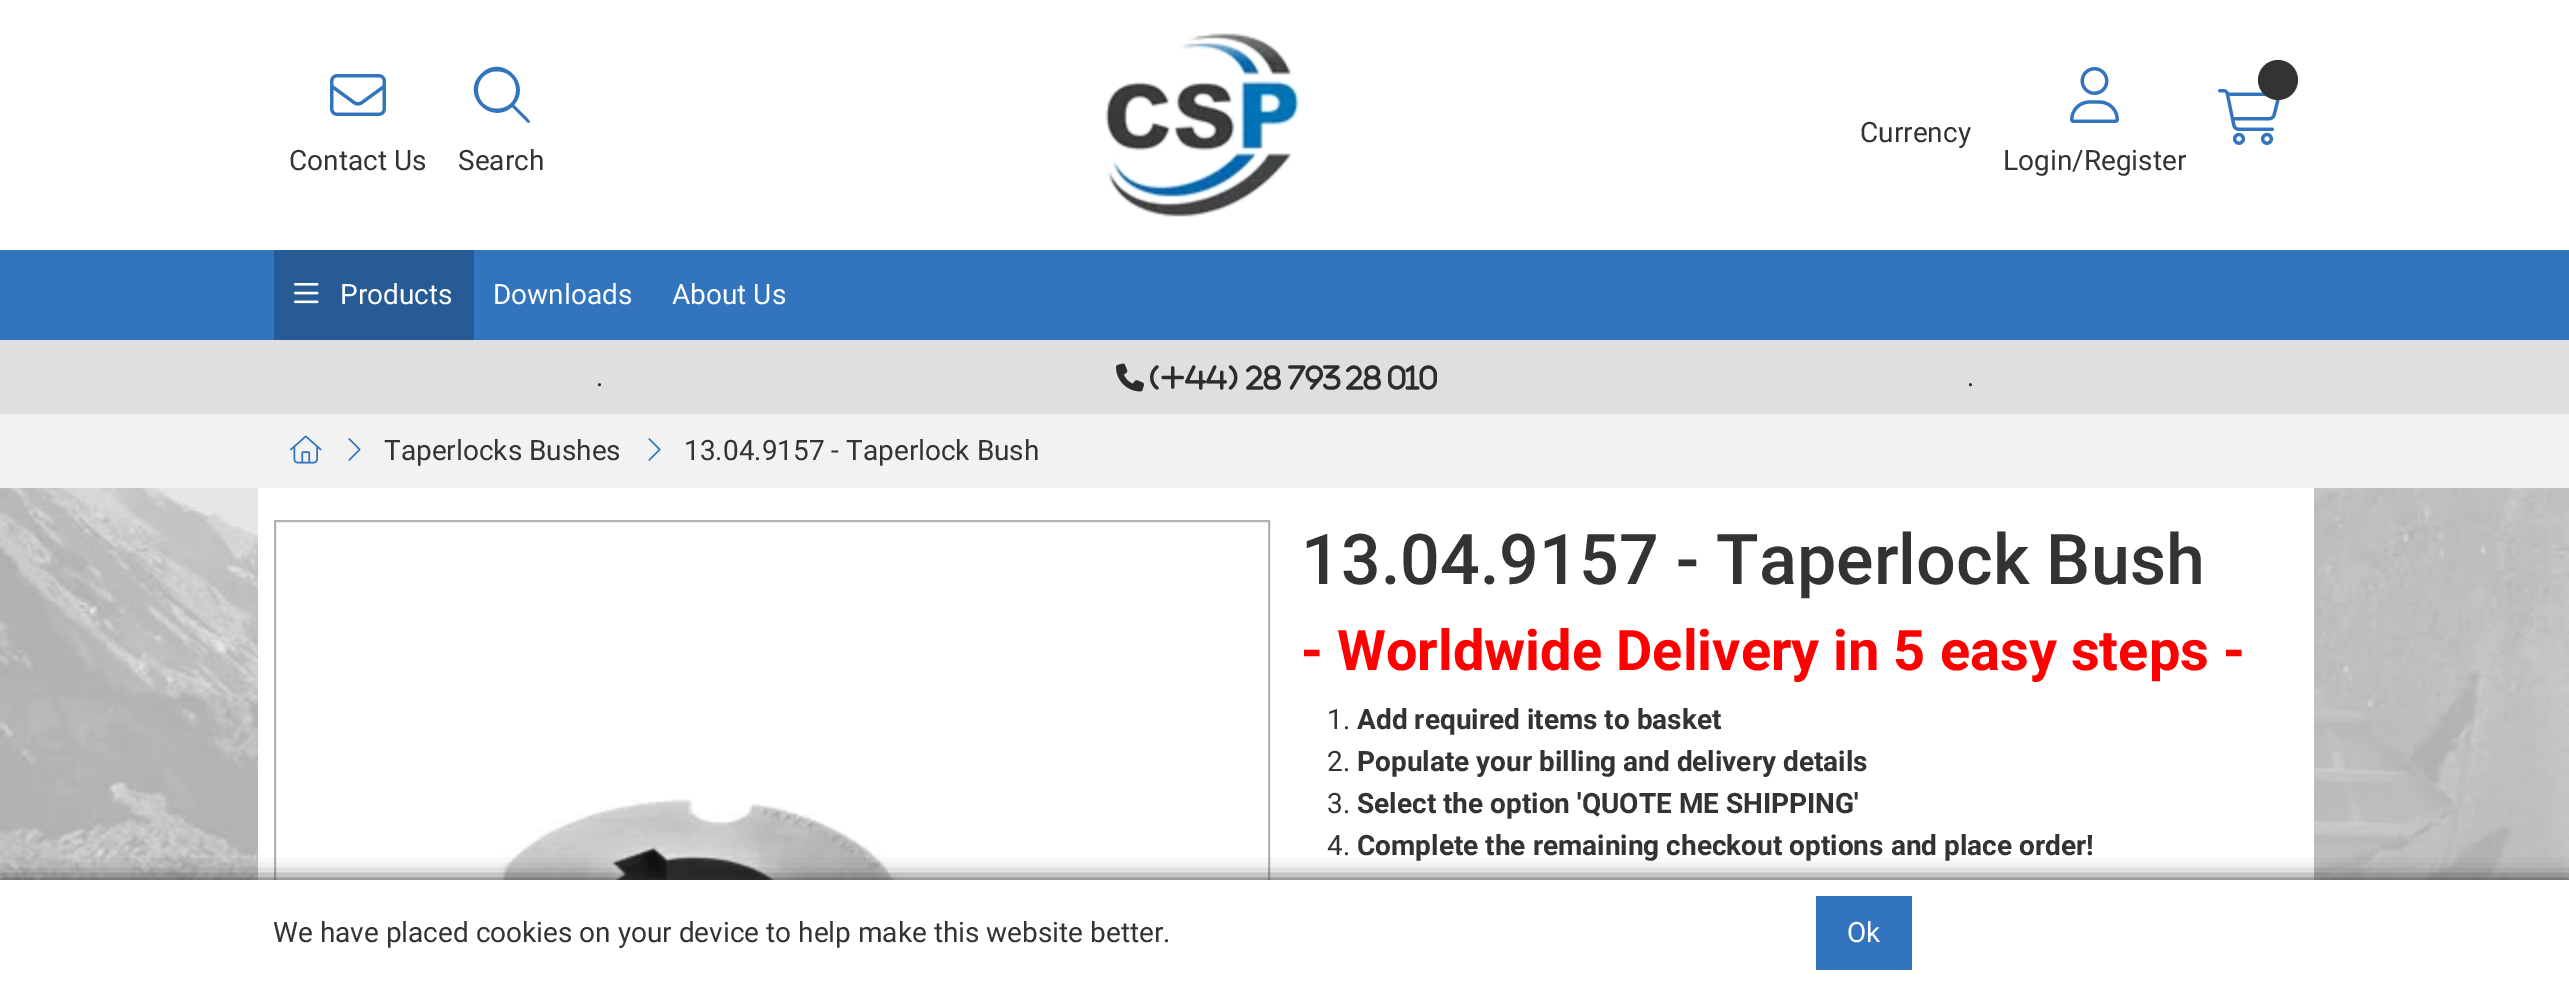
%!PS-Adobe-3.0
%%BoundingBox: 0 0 2569 986
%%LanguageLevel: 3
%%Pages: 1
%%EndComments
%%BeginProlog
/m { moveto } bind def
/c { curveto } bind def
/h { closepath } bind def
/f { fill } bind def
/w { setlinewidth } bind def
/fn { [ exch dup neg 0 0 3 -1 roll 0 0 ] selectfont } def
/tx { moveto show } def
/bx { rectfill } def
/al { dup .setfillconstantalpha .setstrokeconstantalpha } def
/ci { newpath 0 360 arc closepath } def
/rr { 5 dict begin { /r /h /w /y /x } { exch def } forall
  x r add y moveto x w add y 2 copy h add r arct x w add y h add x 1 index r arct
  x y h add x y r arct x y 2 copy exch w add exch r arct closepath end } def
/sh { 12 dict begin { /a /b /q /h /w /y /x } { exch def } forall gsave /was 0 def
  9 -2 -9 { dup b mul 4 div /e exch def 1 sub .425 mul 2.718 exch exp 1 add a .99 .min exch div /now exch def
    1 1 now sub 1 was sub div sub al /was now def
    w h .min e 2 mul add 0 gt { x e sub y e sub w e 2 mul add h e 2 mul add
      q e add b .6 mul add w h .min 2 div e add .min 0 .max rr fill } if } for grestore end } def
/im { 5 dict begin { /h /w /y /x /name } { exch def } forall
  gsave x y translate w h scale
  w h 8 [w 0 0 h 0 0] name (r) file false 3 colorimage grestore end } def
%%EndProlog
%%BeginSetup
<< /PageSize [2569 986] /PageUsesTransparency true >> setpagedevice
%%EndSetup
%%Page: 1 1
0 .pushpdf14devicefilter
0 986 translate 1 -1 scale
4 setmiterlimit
1 setgray
0 0 2569 986 bx
(image0.raw) 0 488 2569 392 im
(image1.raw) 1105 33 195 184 im
/Roboto-Regular 28 fn
0.2 setgray
(Currency) 1860 142 tx
(image2.raw) 2218 89 62 56 im
2278 80 20 ci f
(image3.raw) 330 74 56 42 im
(Contact Us) 289 170 tx
0.196 0.455 0.741 setrgbcolor
516 90 m 516 65 478 65 478 90 c 478 115 516 115 516 90 c h 512 107 m 490 126 460 94 481 74 c 501 53 533 83 514 105 c 516 107 530 120 530 122 c 530 123 528 123 527 122 c h f
0.2 setgray
(Search) 458 170 tx
(image4.raw) 2070 67 49 56 im
(Login/Register) 2003 170 tx
0.196 0.455 0.741 setrgbcolor
0 250 2569 90 bx
0.153 0.357 0.584 setrgbcolor
274 250 200 90 bx
(image5.raw) 294 283 25 21 im
1 setgray
(Products) 340 304 tx
(Downloads) 493 304 tx
(About Us) 672 304 tx
0.875 setgray
0 340 2569 74 bx
0.173 setgray
(.) 596 386 tx
(image6.raw) 1116 363 28 29 im
(image7.raw) 1150 365 88 25 im
(image8.raw) 1246 365 35 25 im
(image9.raw) 1288 365 53 25 im
(image8.raw) 1346 365 35 25 im
(image10.raw) 1388 365 49 25 im
(.) 1967 386 tx
0.949 setgray
0 414 2569 74 bx
(image11.raw) 290 435 32 29 im
(image12.raw) 348 438 13 23 im
0.2 setgray
(Taperlocks Bushes) 384 460 tx
(image12.raw) 648 438 13 23 im
(13.04.9157 - Taperlock Bush) 684 460 tx
1 setgray
258 488 2056 392 bx
0.702 setgray
2 w
275 521 994 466 rectstroke
(image13.raw) 489 799 416 81 im
/Roboto-Medium 70 fn
0.2 setgray
(13.04.9157 - Taperlock Bush) 1301 584 tx
/Roboto-Bold 56 fn
1 0 0 setrgbcolor
(- Worldwide Delivery in 5 easy steps -) 1301 670 tx
/Roboto-Regular 28 fn
0.2 setgray
(1.) 1327 729 tx
/Roboto-Bold 28 fn
(Add required items to basket) 1357 729 tx
/Roboto-Regular 28 fn
(2.) 1327 771 tx
/Roboto-Bold 28 fn
(Populate your billing and delivery details) 1357 771 tx
/Roboto-Regular 28 fn
(3.) 1327 813 tx
/Roboto-Bold 28 fn
(Select the option 'QUOTE ME SHIPPING') 1357 813 tx
/Roboto-Regular 28 fn
(4.) 1327 855 tx
/Roboto-Bold 28 fn
(Complete the remaining checkout options and place order!) 1357 855 tx
0 880 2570 106 0 10 1 sh
1 setgray
0 880 2569 106 bx
/Roboto-Regular 28 fn
0.2 setgray
(We have placed cookies on your device to help make this website better.) 273 942 tx
0.196 0.455 0.741 setrgbcolor
1816 896 96 74 bx
1 setgray
(Ok) 1847 942 tx
.poppdf14devicefilter showpage
%%EOF
